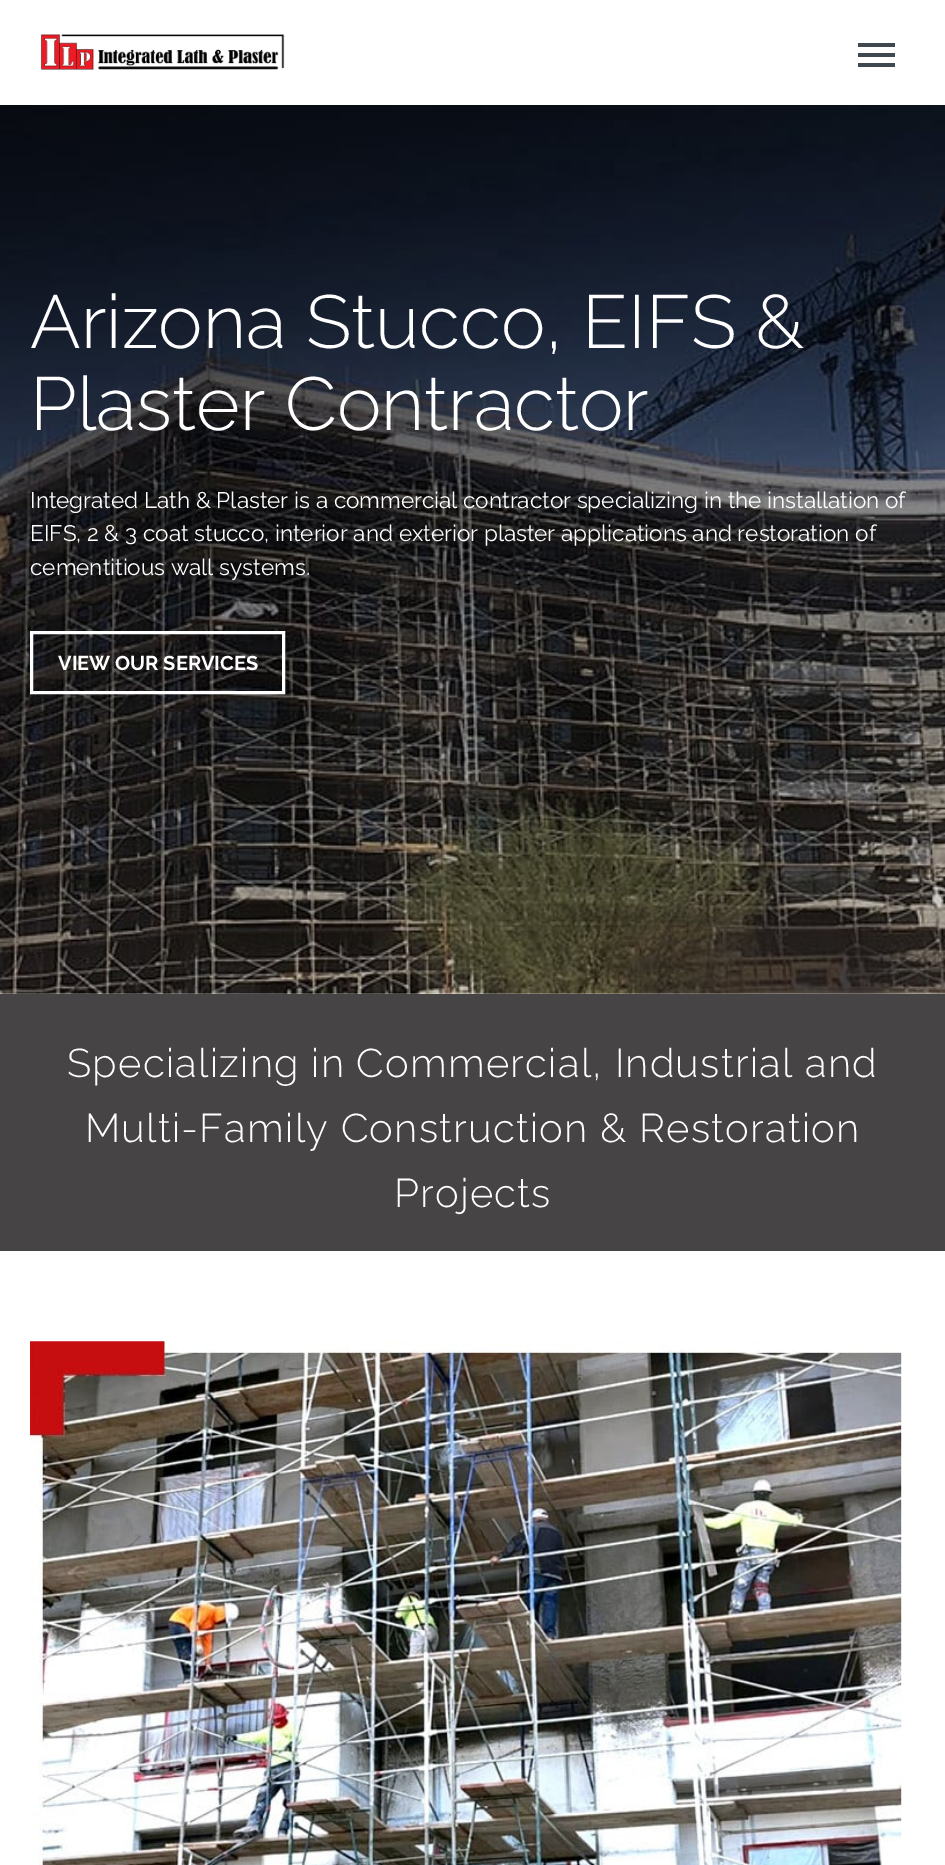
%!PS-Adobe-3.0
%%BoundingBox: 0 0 945 1865
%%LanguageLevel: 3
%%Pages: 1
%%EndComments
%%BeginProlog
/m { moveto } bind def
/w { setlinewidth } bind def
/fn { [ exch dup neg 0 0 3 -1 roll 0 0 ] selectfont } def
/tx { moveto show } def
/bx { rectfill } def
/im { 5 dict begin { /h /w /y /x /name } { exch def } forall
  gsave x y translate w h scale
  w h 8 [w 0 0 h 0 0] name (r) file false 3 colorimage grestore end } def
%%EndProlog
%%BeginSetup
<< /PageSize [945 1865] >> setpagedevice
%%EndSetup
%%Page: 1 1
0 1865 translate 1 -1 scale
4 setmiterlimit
1 setgray
0 0 945 1865 bx
(image0.raw) 40 34 245 36 im
0.251 0.282 0.31 setrgbcolor
858 53 37 4 bx
858 43 37 4 bx
858 63 37 4 bx
(image1.raw) 0 105 945 889 im
/Raleway-Light 75 fn
1 setgray
(Arizona Stucco, EIFS &) 30 348 tx
(Plaster Contractor) 30 430 tx
/Raleway-Regular 22.5 fn
(Integrated Lath & Plaster is a commercial contractor specializing in the installation of) 30 508 tx
(EIFS, 2 & 3 coat stucco, interior and exterior plaster applications and restoration of) 30 541 tx
(cementitious wall systems.) 30 575 tx
3 w
31.5 632.5 252 60 rectstroke
/Raleway-Bold 20 fn
(VIEW OUR SERVICES) 58 670 tx
0.275 0.267 0.267 setrgbcolor
0 994 945 257 bx
/Raleway-Light 40 fn
1 setgray
67 1077 m 1.25 0 (Specializing in Commercial, Industrial and) ashow
85 1142 m 1.25 0 (Multi-Family Construction & Restoration) ashow
394 1207 m 1.25 0 (Projects) ashow
(image2.raw) 30 1341 872 524 im
showpage
%%EOF
